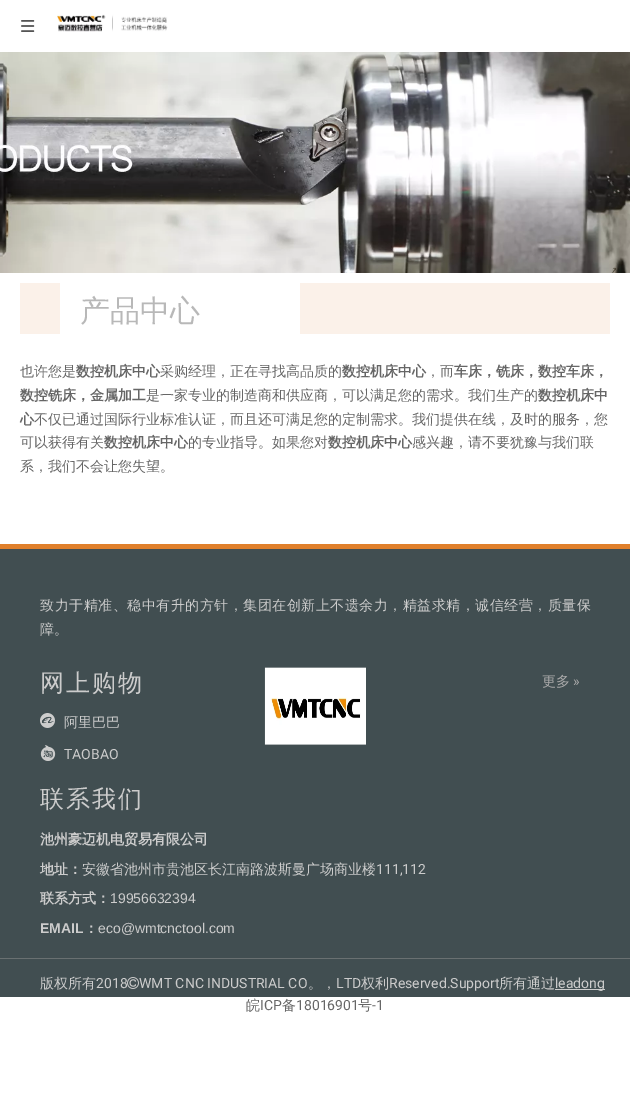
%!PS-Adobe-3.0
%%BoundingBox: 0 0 630 1102
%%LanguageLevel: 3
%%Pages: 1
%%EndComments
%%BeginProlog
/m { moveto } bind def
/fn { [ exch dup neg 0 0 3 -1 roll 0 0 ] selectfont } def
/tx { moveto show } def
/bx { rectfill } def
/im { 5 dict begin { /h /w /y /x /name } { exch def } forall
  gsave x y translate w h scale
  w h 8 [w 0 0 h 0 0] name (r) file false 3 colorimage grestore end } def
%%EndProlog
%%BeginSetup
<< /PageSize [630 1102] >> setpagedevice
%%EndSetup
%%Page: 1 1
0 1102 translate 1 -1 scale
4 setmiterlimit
1 setgray
0 0 630 1102 bx
(image0.raw) 21 20 14 12 im
(image1.raw) 57 14 111 18 im
(image2.raw) 0 52 630 221 im
(image3.raw) 20 283 590 51 im
/WenQuanYiZenHei-Medium 30 fn
0.722 setgray
(产品中心) 80 321 tx
/WenQuanYiZenHei-Medium 14 fn
0.4 setgray
(也许您是) 20 376 tx
/WenQuanYiZenHei-Bold 14 fn
(数控机床中心) 76 376 tx
/WenQuanYiZenHei-Medium 14 fn
(采购经理，正在寻找高品质的) 160 376 tx
/WenQuanYiZenHei-Bold 14 fn
(数控机床中心) 342 376 tx
/WenQuanYiZenHei-Medium 14 fn
(，而) 426 376 tx
/WenQuanYiZenHei-Bold 14 fn
(车床，铣床，数控车床，) 454 376 tx
(数控铣床，金属加工) 20 400 tx
/WenQuanYiZenHei-Medium 14 fn
(是一家专业的制造商和供应商，可以满足您的需求。我们生产的) 146 400 tx
/WenQuanYiZenHei-Bold 14 fn
(数控机床中) 538 400 tx
(心) 20 424 tx
/WenQuanYiZenHei-Medium 14 fn
(不仅已通过国际行业标准认证，而且还可满足您的定制需求。我们提供在线，及时的服务，您) 34 424 tx
(可以获得有关) 20 447 tx
/WenQuanYiZenHei-Bold 14 fn
(数控机床中心) 104 447 tx
/WenQuanYiZenHei-Medium 14 fn
(的专业指导。如果您对) 188 447 tx
/WenQuanYiZenHei-Bold 14 fn
(数控机床中心) 328 447 tx
/WenQuanYiZenHei-Medium 14 fn
(感兴趣，请不要犹豫与我们联) 412 447 tx
(系，我们不会让您失望。) 20 471 tx
0.255 0.306 0.318 setrgbcolor
0 549 630 409 bx
0.878 0.502 0.169 setrgbcolor
0 544 630 5 bx
0.8 setgray
40 610 m 0.5 0 (致力于精准、稳中有升的方针，集团在创新上不遗余力，精益求精，诚信经营，质量保) ashow
(障。) 40 634 tx
(image4.raw) 264 667 102 78 im
/WenQuanYiZenHei-Medium 24 fn
40 691 m 2 0 (网上购物) ashow
/WenQuanYiZenHei-Medium 14 fn
0.667 setgray
(更多) 542 686 tx
/Roboto-Regular 14 fn
(») 573 686 tx
(image5.raw) 40 713 15 15 im
/WenQuanYiZenHei-Medium 14 fn
0.8 setgray
(阿里巴巴) 64 727 tx
(image6.raw) 40 745 16 16 im
/Roboto-Regular 14 fn
(TAOBAO) 64 759 tx
/WenQuanYiZenHei-Medium 24 fn
40 807 m 2 0 (联系我们) ashow
/WenQuanYiZenHei-Bold 14 fn
(池州豪迈机电贸易有限公司) 40 844 tx
(地址：) 40 874 tx
/WenQuanYiZenHei-Medium 14 fn
(安徽省池州市贵池区长江南路波斯曼广场商业楼) 82 874 tx
/Roboto-Regular 14 fn
(111,112) 376 874 tx
/WenQuanYiZenHei-Bold 14 fn
(联系方式：) 40 903 tx
/LiberationSans-Regular 14 fn
(19956632394) 110 903 tx
/LiberationSans-Bold 14 fn
(EMAIL) 40 933 tx
/WenQuanYiZenHei-Bold 14 fn
(：) 84 933 tx
/LiberationSans-Regular 14 fn
(eco@wmtcnctool.com) 98 933 tx
0.255 0.306 0.318 setrgbcolor
0 959 630 38 bx
0.412 0.439 0.443 setrgbcolor
0 958 630 1 bx
/WenQuanYiZenHei-Medium 14 fn
0.8 setgray
(版权所有) 40 988 tx
/Roboto-Regular 14 fn
(2018) 96 988 tx
(image7.raw) 127 977 12 12 im
(WMT CNC INDUSTRIAL CO) 139 988 tx
/WenQuanYiZenHei-Medium 14 fn
(。，) 308 988 tx
/Roboto-Regular 14 fn
(LTD) 336 988 tx
/WenQuanYiZenHei-Medium 14 fn
(权利) 361 988 tx
/Roboto-Regular 14 fn
(Reserved.Support) 389 988 tx
/WenQuanYiZenHei-Medium 14 fn
(所有通过) 499 988 tx
555 989 50 1 bx
/Roboto-Regular 14 fn
(leadong) 555 988 tx
/WenQuanYiZenHei-Medium 14 fn
0.4 setgray
(皖) 246 1010 tx
/Roboto-Regular 14 fn
(ICP) 260 1010 tx
/WenQuanYiZenHei-Medium 14 fn
(备) 282 1010 tx
/Roboto-Regular 14 fn
(18016901) 296 1010 tx
/WenQuanYiZenHei-Medium 14 fn
(号) 358 1010 tx
/Roboto-Regular 14 fn
(-1) 372 1010 tx
showpage
%%EOF
